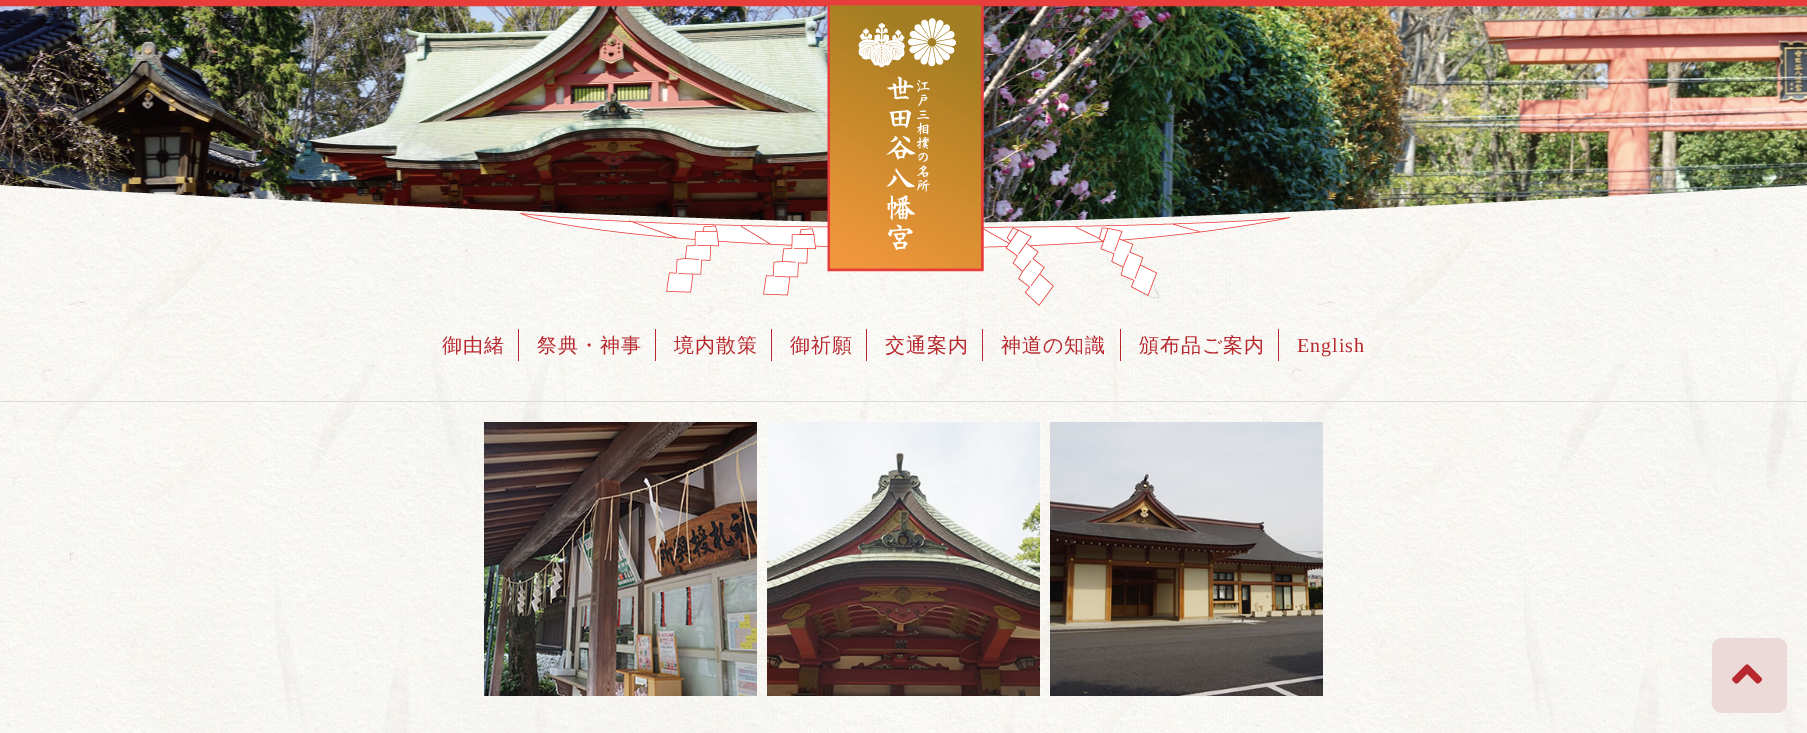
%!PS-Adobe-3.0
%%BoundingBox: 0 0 1807 733
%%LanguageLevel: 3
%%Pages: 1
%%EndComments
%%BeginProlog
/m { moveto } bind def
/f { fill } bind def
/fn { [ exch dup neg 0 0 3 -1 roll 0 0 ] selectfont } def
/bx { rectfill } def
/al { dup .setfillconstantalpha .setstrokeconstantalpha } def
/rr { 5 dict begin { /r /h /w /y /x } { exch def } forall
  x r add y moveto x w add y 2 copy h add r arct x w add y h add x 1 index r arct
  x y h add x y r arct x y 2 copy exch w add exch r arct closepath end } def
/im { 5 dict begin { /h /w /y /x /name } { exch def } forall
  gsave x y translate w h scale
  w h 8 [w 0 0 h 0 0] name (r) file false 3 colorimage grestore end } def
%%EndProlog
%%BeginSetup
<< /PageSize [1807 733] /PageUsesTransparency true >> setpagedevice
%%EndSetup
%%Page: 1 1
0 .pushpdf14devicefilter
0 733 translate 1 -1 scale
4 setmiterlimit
1 setgray
0 0 1807 733 bx
(image0.raw) 0 185 1807 548 im
(image1.raw) 0 0 1807 223 im
(image2.raw) 519 5 772 301 im
0.718 0.157 0.18 setrgbcolor
518 329 1 32 bx
/WenQuanYiZenHei-Medium 20 fn
442 352 m 1 0 (御由緒) ashow
655 329 1 32 bx
537 352 m 1 0 (祭典・神事) ashow
771 329 1 32 bx
674 352 m 1 0 (境内散策) ashow
866 329 1 32 bx
790 352 m 1 0 (御祈願) ashow
982 329 1 32 bx
885 352 m 1 0 (交通案内) ashow
1120 329 1 32 bx
1001 352 m 1 0 (神道の知識) ashow
1278 329 1 32 bx
1139 352 m 1 0 (頒布品ご案内) ashow
/LiberationSerif-Regular 20 fn
1297 352 m 1 0 (English) ashow
0.867 setgray
0 401 1807 1 bx
(image3.raw) 484 422 273 274 im
(image4.raw) 767 422 273 274 im
(image5.raw) 1050 422 273 274 im
0.8 al
0.91 0.827 0.82 setrgbcolor
1712 638 75 75 10 rr f
1 al
(image6.raw) 1732 664 31 20 im
.poppdf14devicefilter showpage
%%EOF
